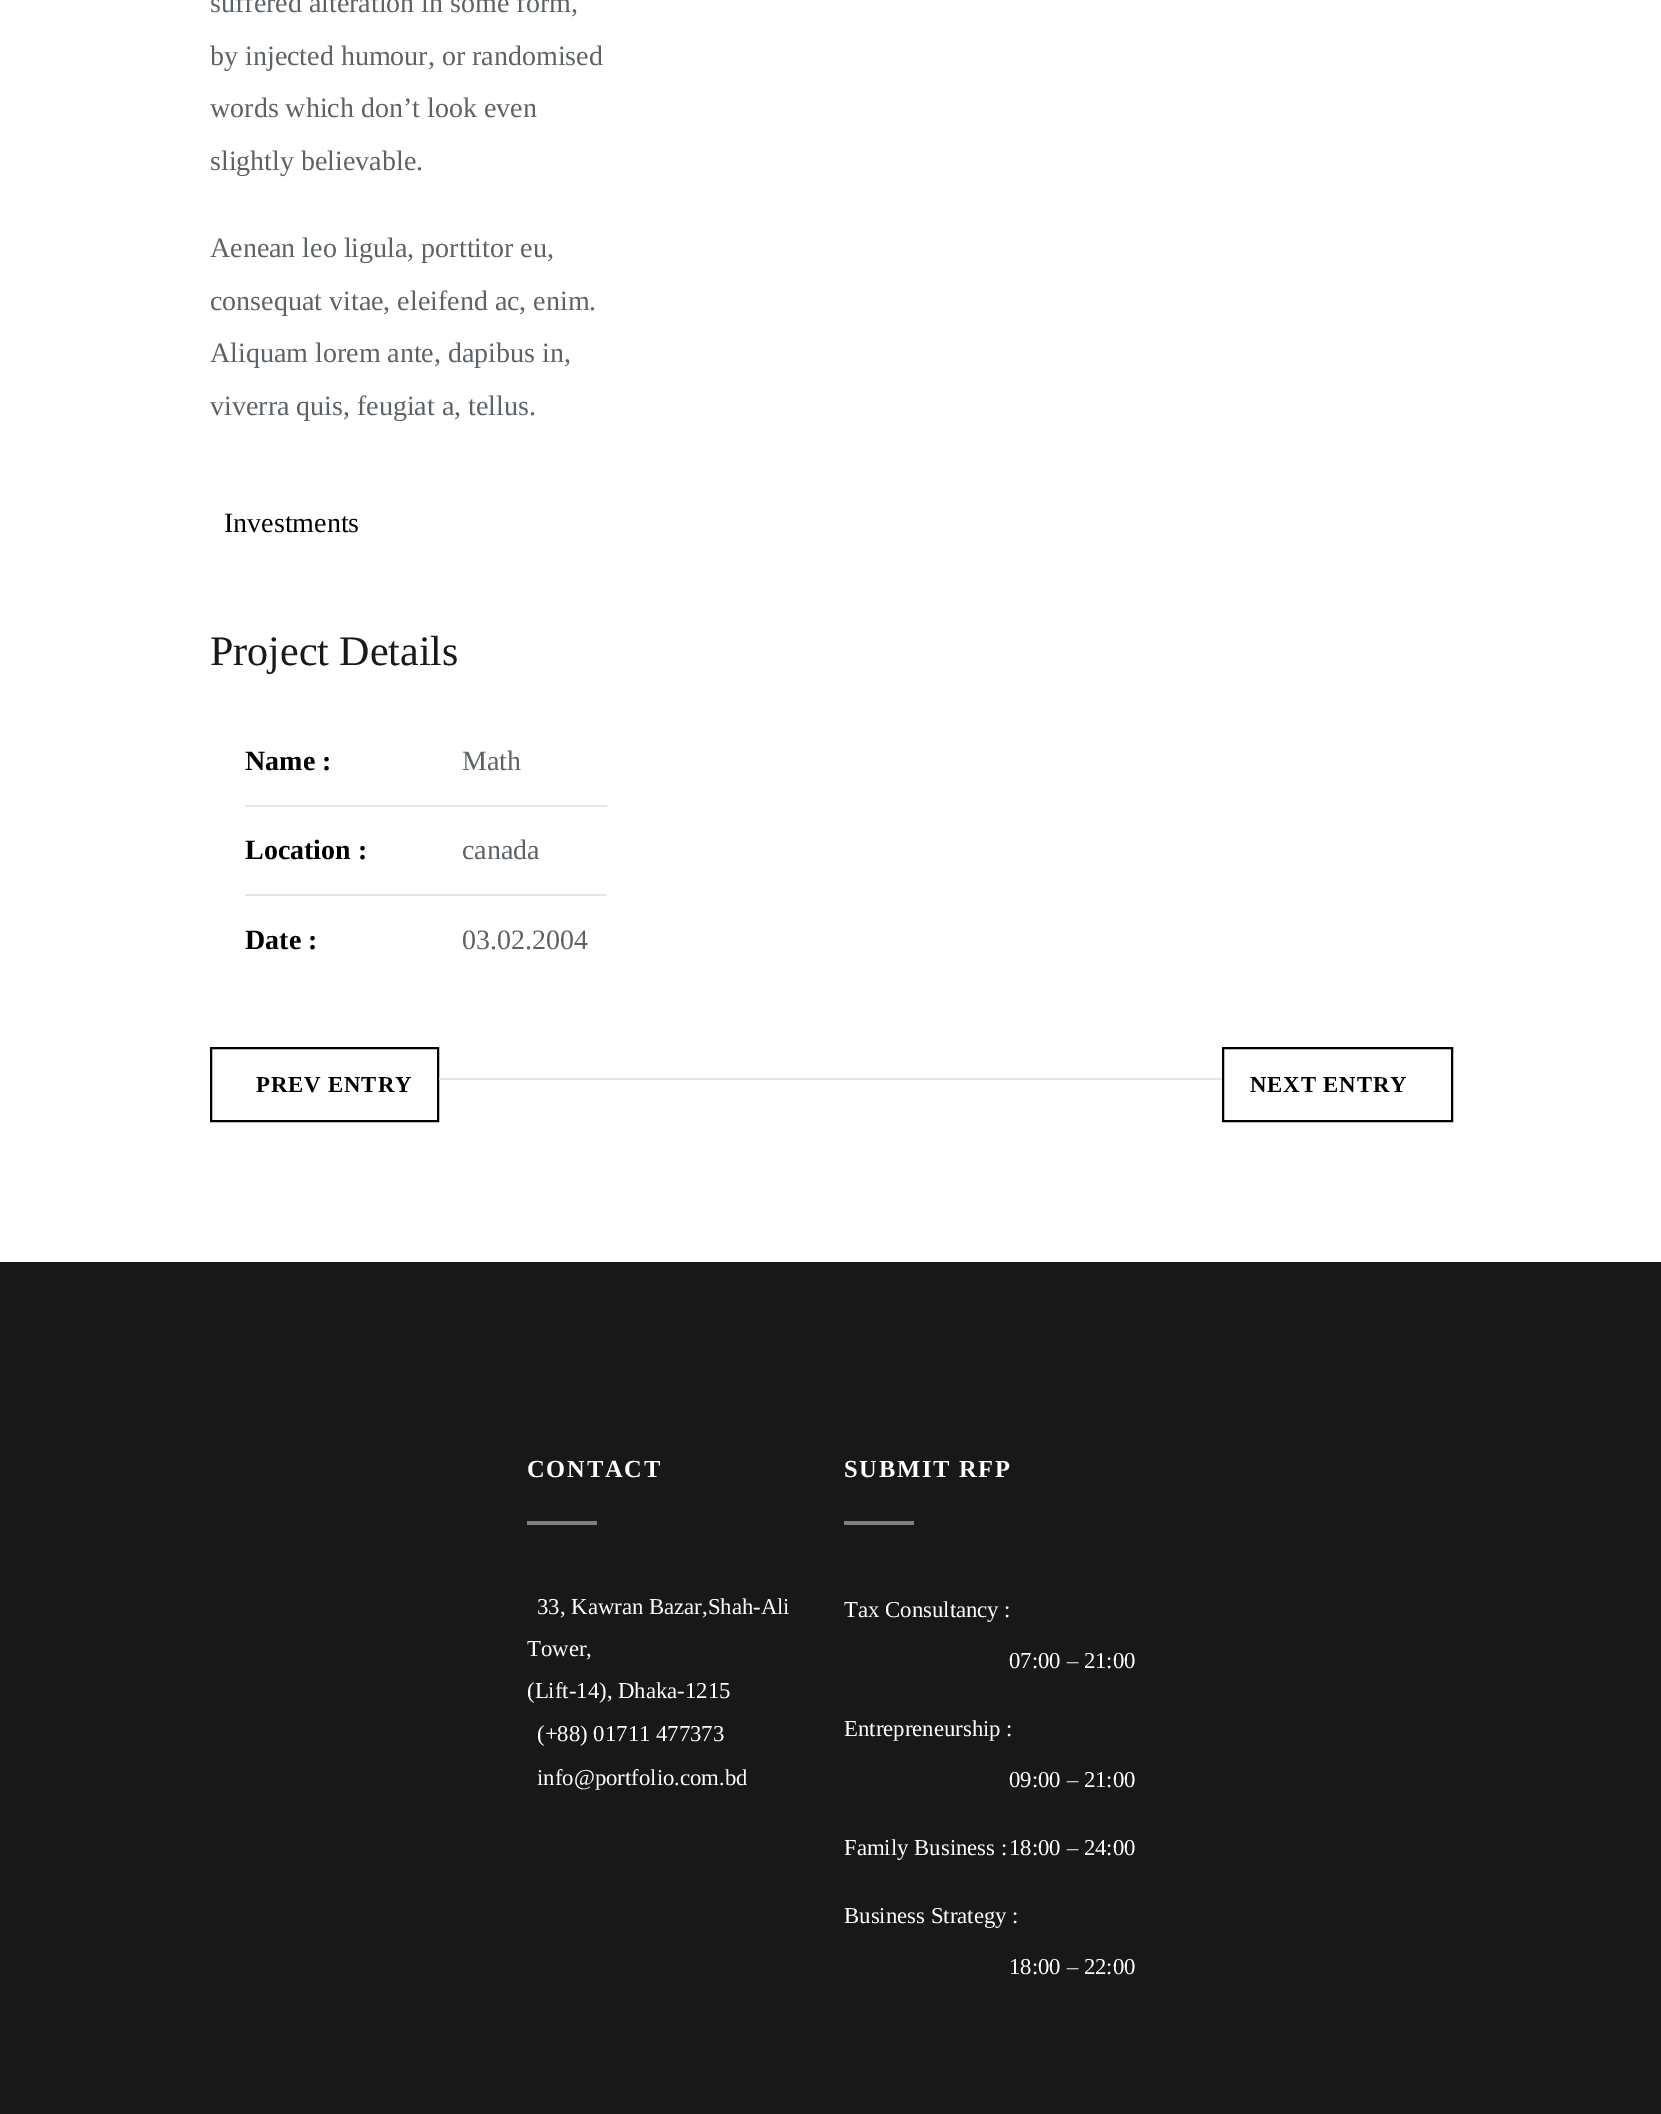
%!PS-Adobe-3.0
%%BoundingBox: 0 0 1661 2114
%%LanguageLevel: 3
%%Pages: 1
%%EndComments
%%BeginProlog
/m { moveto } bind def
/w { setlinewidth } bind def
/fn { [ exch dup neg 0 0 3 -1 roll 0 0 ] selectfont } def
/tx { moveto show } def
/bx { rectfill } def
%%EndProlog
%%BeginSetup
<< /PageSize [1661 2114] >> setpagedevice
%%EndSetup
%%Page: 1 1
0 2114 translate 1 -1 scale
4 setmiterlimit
1 setgray
0 0 1661 2114 bx
/LiberationSerif-Regular 28 fn
0.361 0.384 0.396 setrgbcolor
(suffered alteration in some form,) 210 12 tx
(by injected humour, or randomised) 210 65 tx
(words which don’t look even) 210 117 tx
(slightly believable.) 210 170 tx
(Aenean leo ligula, porttitor eu,) 210 257 tx
(consequat vitae, eleifend ac, enim.) 210 310 tx
(Aliquam lorem ante, dapibus in,) 210 362 tx
(viverra quis, feugiat a, tellus.) 210 415 tx
0 setgray
(Investments) 224 532 tx
/LiberationSerif-Regular 42 fn
0.098 setgray
(Project Details) 210 665 tx
0.902 setgray
245 805 362 2 bx
/LiberationSerif-Bold 28 fn
0 setgray
(Name :) 245 770 tx
/LiberationSerif-Regular 28 fn
0.361 0.384 0.396 setrgbcolor
(Math) 462 770 tx
0.902 setgray
245 894 362 2 bx
/LiberationSerif-Bold 28 fn
0 setgray
(Location :) 245 859 tx
/LiberationSerif-Regular 28 fn
0.361 0.384 0.396 setrgbcolor
(canada) 462 859 tx
/LiberationSerif-Bold 28 fn
0 setgray
(Date :) 245 949 tx
/LiberationSerif-Regular 28 fn
0.361 0.384 0.396 setrgbcolor
(03.02.2004) 462 949 tx
0 setgray
2 w
211 1048 227 73 rectstroke
/LiberationSerif-Bold 22.75 fn
256 1092 m 0.9 0 (PREV ENTRY) ashow
0.902 setgray
439 1078 783 2 bx
0 setgray
1223 1048 229 73 rectstroke
1250 1092 m 0.9 0 (NEXT ENTRY) ashow
0.094 setgray
0 1262 1661 852 bx
/LiberationSerif-Bold 24.5 fn
1 setgray
527 1477 m 1.75 0 (CONTACT) ashow
0.49 0.498 0.51 setrgbcolor
527 1521 70 4 bx
/LiberationSerif-Regular 22.75 fn
1 setgray
(33, Kawran Bazar,Shah-Ali) 537 1614 tx
(Tower,) 527 1656 tx
(\(Lift-14\), Dhaka-1215) 527 1698 tx
(\(+88\) 01711 477373) 537 1741 tx
(info@portfolio.com.bd) 537 1785 tx
/LiberationSerif-Bold 24.5 fn
844 1477 m 1.75 0 (SUBMIT RFP) ashow
0.49 0.498 0.51 setrgbcolor
844 1521 70 4 bx
/LiberationSerif-Regular 22.75 fn
1 setgray
(Tax Consultancy :) 844 1617 tx
(07:00 – 21:00) 1009 1668 tx
(Entrepreneurship :) 844 1736 tx
(09:00 – 21:00) 1009 1787 tx
(Family Business :) 844 1855 tx
(18:00 – 24:00) 1009 1855 tx
(Business Strategy :) 844 1923 tx
(18:00 – 22:00) 1009 1974 tx
showpage
%%EOF
